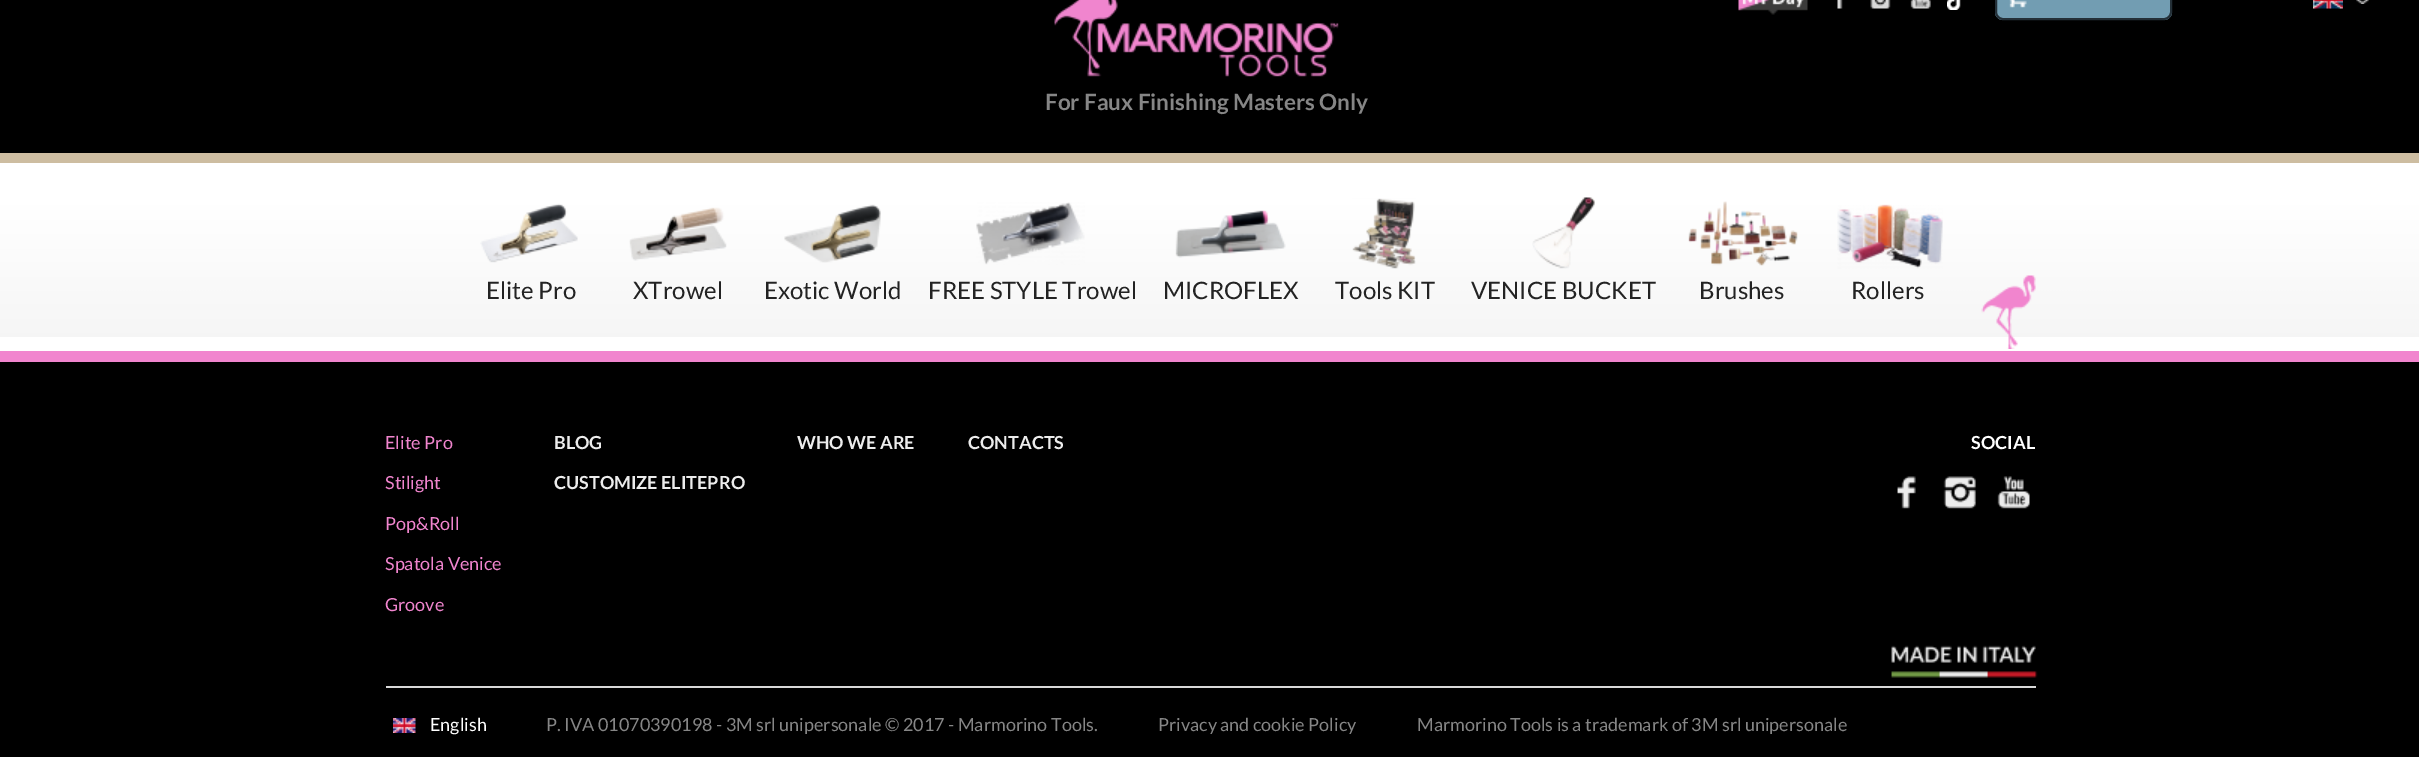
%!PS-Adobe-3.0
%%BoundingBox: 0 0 2419 757
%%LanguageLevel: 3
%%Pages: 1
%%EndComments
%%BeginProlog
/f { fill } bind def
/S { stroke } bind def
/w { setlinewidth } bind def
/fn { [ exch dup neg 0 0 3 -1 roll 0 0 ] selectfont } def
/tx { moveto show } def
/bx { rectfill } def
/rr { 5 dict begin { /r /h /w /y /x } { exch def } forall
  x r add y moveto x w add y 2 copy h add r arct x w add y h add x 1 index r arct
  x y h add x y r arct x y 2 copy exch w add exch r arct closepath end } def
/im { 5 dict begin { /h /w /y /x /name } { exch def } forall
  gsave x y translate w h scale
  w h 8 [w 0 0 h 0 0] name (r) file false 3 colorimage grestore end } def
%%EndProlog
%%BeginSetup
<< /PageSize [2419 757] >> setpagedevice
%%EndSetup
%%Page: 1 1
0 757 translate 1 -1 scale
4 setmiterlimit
1 setgray
0 0 2419 757 bx
0 setgray
0 0 2419 153 bx
(image0.raw) 1738 0 70 15 im
(image1.raw) 1837 0 6 9 im
(image2.raw) 1870 0 21 9 im
(image3.raw) 1910 0 21 9 im
(image4.raw) 1947 0 14 10 im
0.447 0.616 0.698 setrgbcolor
1995 -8 177 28 8 rr f
(image5.raw) 2009 0 18 8 im
0.141 0.188 0.22 setrgbcolor
2 w
1996 -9 175 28 7 rr S
(image6.raw) 2313 0 30 9 im
(image7.raw) 2356 0 13 4 im
0.804 0.741 0.631 setrgbcolor
0 153 2419 10 bx
(image8.raw) 1054 0 285 77 im
/Lato-Bold 22.5 fn
0.525 setgray
(For Faux Finishing Masters Only) 1045 110 tx
(image9.raw) 0 163 2419 174 im
(image10.raw) 480 203 98 60 im
/Lato-Regular 24 fn
0.137 setgray
(Elite Pro) 486 299 tx
(image11.raw) 629 207 98 54 im
(XTrowel) 633 299 tx
(image12.raw) 784 204 97 59 im
(Exotic World) 764 299 tx
(image13.raw) 976 202 109 63 im
(FREE STYLE Trowel) 928 299 tx
(image14.raw) 1175 210 111 48 im
(MICROFLEX) 1163 299 tx
(image15.raw) 1352 198 64 71 im
(Tools KIT) 1335 299 tx
(image16.raw) 1532 197 63 72 im
(VENICE BUCKET) 1471 299 tx
(image17.raw) 1688 201 110 65 im
(Brushes) 1699 299 tx
(image18.raw) 1837 204 106 65 im
(Rollers) 1851 299 tx
(image19.raw) 1981 275 55 74 im
0 setgray
0 362 2419 395 bx
0.945 0.522 0.808 setrgbcolor
0 351 2419 11 bx
0.851 setgray
386 686 1650 2 bx
/Lato-Regular 18 fn
0.945 0.522 0.808 setrgbcolor
(Elite Pro) 385 449 tx
(Stilight) 385 489 tx
(Pop&Roll) 385 530 tx
(Spatola Venice) 385 570 tx
(Groove) 385 611 tx
/Lato-Bold 18 fn
0.925 setgray
(BLOG) 554 449 tx
(CUSTOMIZE ELITEPRO) 554 489 tx
(WHO WE ARE) 797 449 tx
(CONTACTS) 968 449 tx
1 setgray
(SOCIAL) 1971 449 tx
(image20.raw) 1897 476 19 33 im
(image21.raw) 1943 476 33 33 im
(image22.raw) 1997 476 33 33 im
(image23.raw) 1891 645 147 33 im
(image24.raw) 393 718 23 15 im
/Lato-Regular 18 fn
(English) 430 731 tx
0.525 setgray
(P. IVA 01070390198 - 3M srl unipersonale © 2017 - Marmorino Tools.) 546 731 tx
(Privacy and cookie Policy) 1158 731 tx
(Marmorino Tools is a trademark of 3M srl unipersonale) 1417 731 tx
showpage
%%EOF
